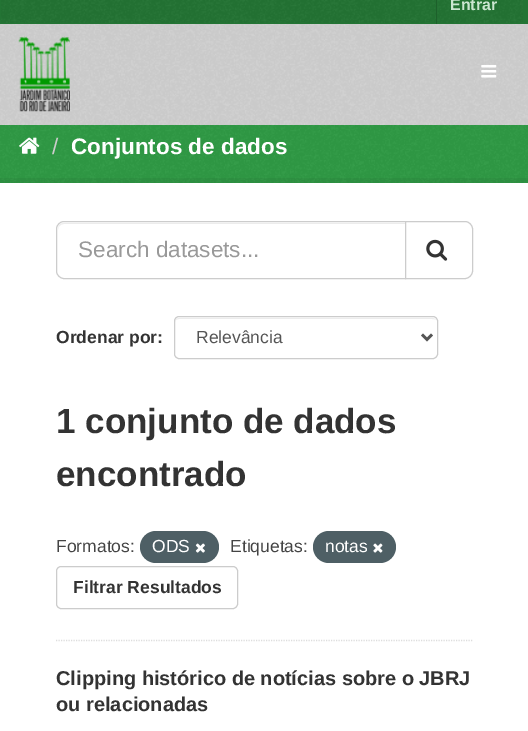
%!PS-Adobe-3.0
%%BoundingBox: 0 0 528 731
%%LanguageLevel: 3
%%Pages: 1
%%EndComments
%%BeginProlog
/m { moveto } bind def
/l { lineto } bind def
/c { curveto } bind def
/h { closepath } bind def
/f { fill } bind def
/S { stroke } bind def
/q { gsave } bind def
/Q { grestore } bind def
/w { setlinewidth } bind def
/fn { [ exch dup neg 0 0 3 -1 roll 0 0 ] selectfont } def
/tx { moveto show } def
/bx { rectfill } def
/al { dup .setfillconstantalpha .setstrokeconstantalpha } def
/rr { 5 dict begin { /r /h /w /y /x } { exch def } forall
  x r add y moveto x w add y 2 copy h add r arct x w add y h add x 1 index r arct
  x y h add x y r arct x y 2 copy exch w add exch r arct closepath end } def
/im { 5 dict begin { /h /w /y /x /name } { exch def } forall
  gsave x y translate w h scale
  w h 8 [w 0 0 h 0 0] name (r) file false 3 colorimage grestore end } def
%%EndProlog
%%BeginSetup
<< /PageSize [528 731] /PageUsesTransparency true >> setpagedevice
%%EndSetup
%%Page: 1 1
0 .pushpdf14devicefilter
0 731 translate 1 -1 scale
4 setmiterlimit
0.184 0.608 0.271 setrgbcolor
0 0 528 731 bx
(image0.raw) 0 125 528 58 im
0.137 0.455 0.204 setrgbcolor
0 0 528 24 bx
(image1.raw) 1 0 522 23 im
0.114 0.376 0.169 setrgbcolor
436 0 1 24 bx
/LiberationSans-Bold 16 fn
0.796 0.902 0.82 setrgbcolor
(Entrar) 450 10 tx
0.82 setgray
0 24 528 101 bx
(image2.raw) 0 24 528 101 im
(image3.raw) 18 36 52 76 im
(image4.raw) 481 65 16 13 im
(image5.raw) 19 137 21 17 im
/LiberationSans-Regular 22.5 fn
0.8 setgray
(/) 52 154 tx
/LiberationSans-Bold 22.5 fn
1 setgray
(Conjuntos de dados) 71 154 tx
0.05 al
0 setgray
5 w
-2.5 180.5 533 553 rectstroke
1 al
1 setgray
0 183 528 548 bx
0.867 setgray
1.2 w
[1.25 1.25] 0 setdash
56 640.5 m 472.5 640.5 l S
0.925 setgray
64 224 m 405 224 l 405 223 l 64 223 l 60 223 58 226 58 230 c 58 227 60 224 64 224 c h f
0.8 setgray
1 w
[] 0 setdash
64 221.5 m 405.5 221.5 l 405.5 278.5 l 64 278.5 l 60 278.5 56.5 275 56.5 271 c 56.5 229 l 56.5 225 60 221.5 64 221.5 c h S
/LiberationSans-Regular 22.5 fn
0.6 setgray
(Search datasets...) 78 257 tx
1 setgray
405.5 221.5 m 465 221.5 l 469 221.5 472.5 225 472.5 229 c 472.5 271 l 472.5 275 469 278.5 465 278.5 c 405.5 278.5 l h q f Q
0.8 setgray
S
(image6.raw) 426 239 22 22 im
/LiberationSans-Bold 17.5 fn
0.2 setgray
(Ordenar por:) 56 343 tx
0.925 setgray
179 319 m 432 319 l 434 319 435 319 436 320 c 435 319 434 318 432 318 c 179 318 l 177 318 175 320 175 322 c 175 320 177 319 179 319 c h f
0.8 setgray
174.5 316.5 263 42 4.5 rr S
0.333 setgray
2.5 w
422 334.5 m 427 339.5 l 432 334.5 l S
/LiberationSans-Regular 17.5 fn
(Relevância) 196 343 tx
/LiberationSans-Bold 35 fn
0.2 setgray
(1 conjunto de dados) 56 433 tx
(encontrado) 56 486 tx
/LiberationSans-Regular 17.5 fn
0.267 setgray
(Formatos:) 56 552 tx
0.306 0.373 0.396 setrgbcolor
140 531 79 32 16 rr f
1 setgray
(ODS) 152 552 tx
(image7.raw) 195 543 10 10 im
0.267 setgray
(Etiquetas:) 230 552 tx
0.306 0.373 0.396 setrgbcolor
313 531 83 32 16 rr f
1 setgray
(notas) 325 552 tx
(image8.raw) 373 543 10 10 im
0.8 setgray
1 w
56.5 566.5 181 42 4.5 rr S
/LiberationSans-Bold 17.5 fn
0.2 setgray
(Filtrar Resultados) 73 593 tx
/LiberationSans-Bold 20 fn
(Clipping histórico de notícias sobre o JBRJ) 56 685 tx
(ou relacionadas) 56 711 tx
.poppdf14devicefilter showpage
%%EOF
